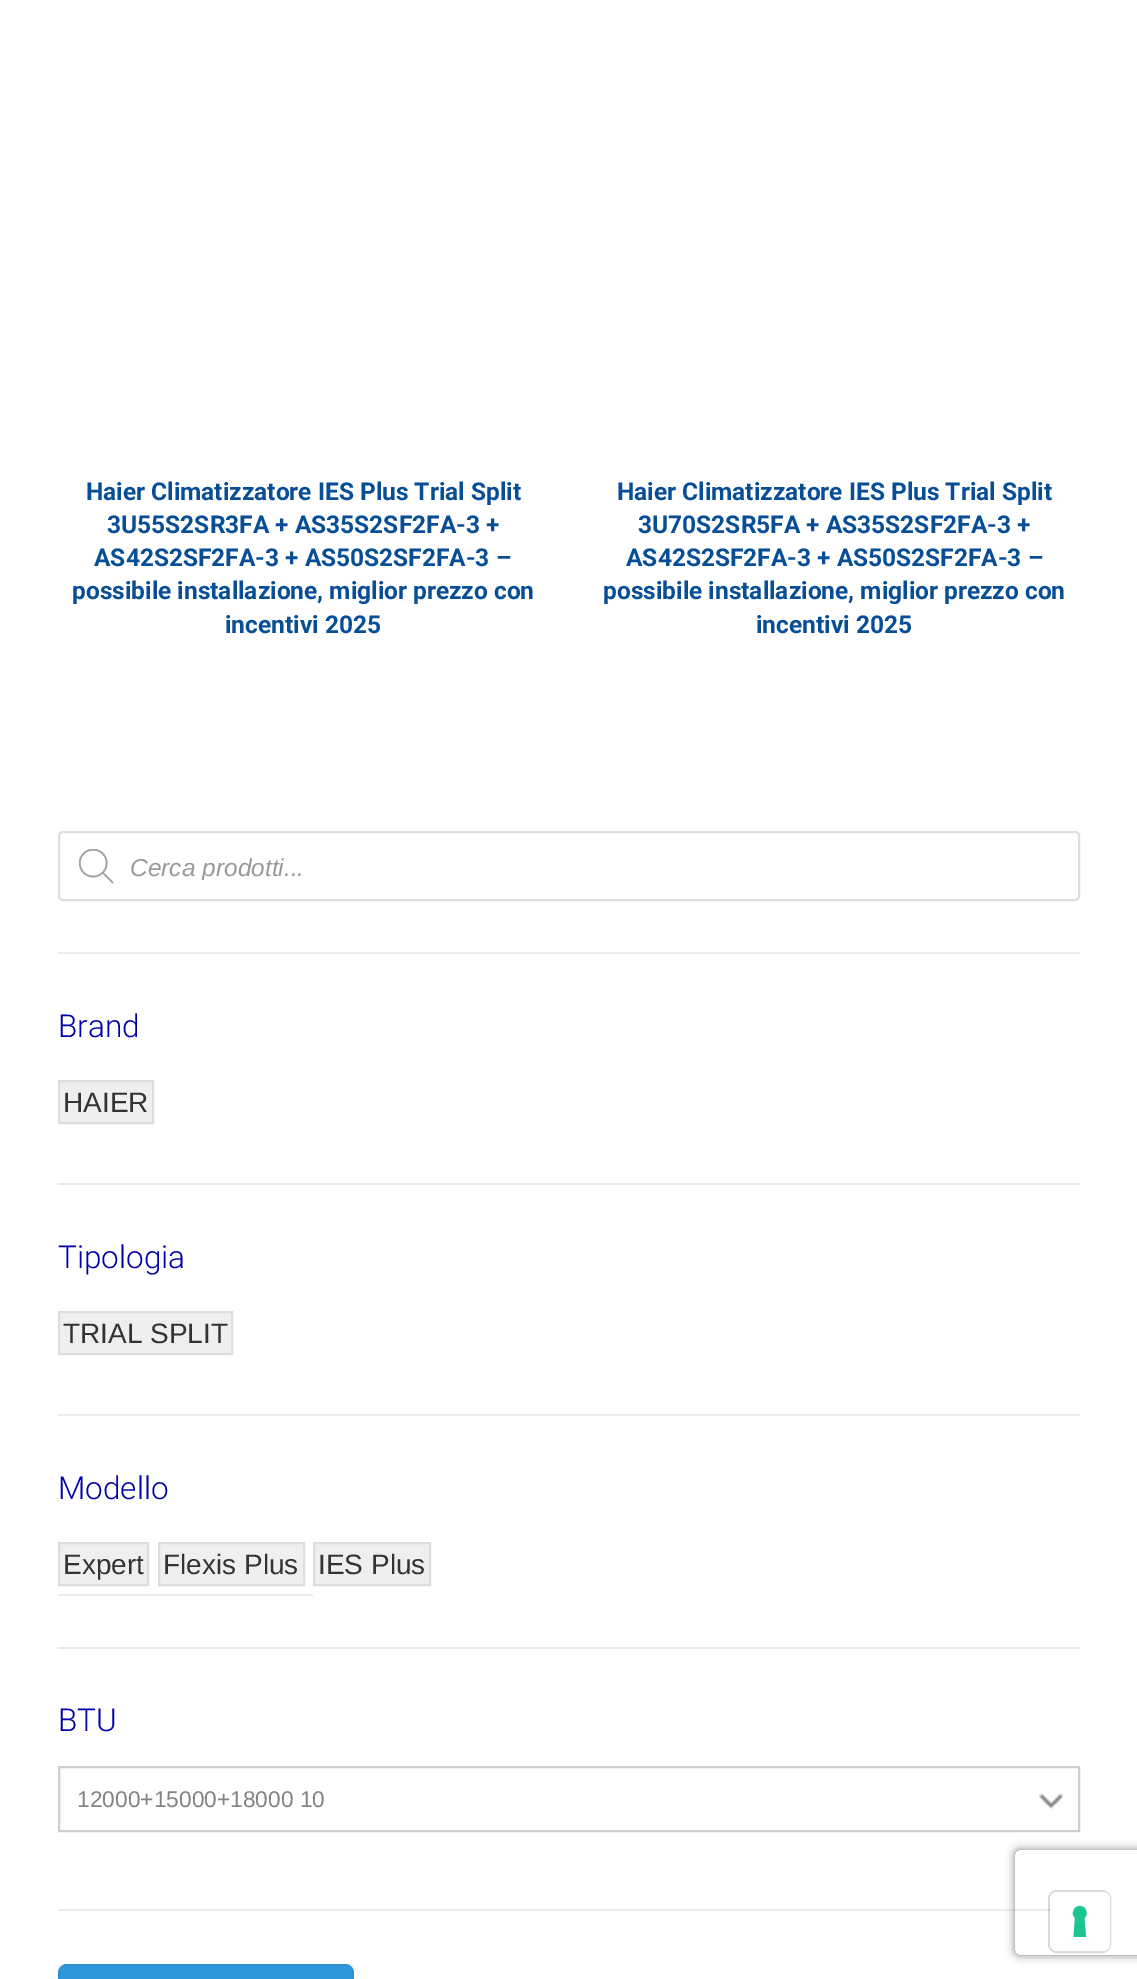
%!PS-Adobe-3.0
%%BoundingBox: 0 0 1137 1979
%%LanguageLevel: 3
%%Pages: 1
%%EndComments
%%BeginProlog
/m { moveto } bind def
/l { lineto } bind def
/c { curveto } bind def
/h { closepath } bind def
/f { fill } bind def
/S { stroke } bind def
/q { gsave } bind def
/Q { grestore } bind def
/w { setlinewidth } bind def
/fn { [ exch dup neg 0 0 3 -1 roll 0 0 ] selectfont } def
/tx { moveto show } def
/bx { rectfill } def
/al { dup .setfillconstantalpha .setstrokeconstantalpha } def
/rr { 5 dict begin { /r /h /w /y /x } { exch def } forall
  x r add y moveto x w add y 2 copy h add r arct x w add y h add x 1 index r arct
  x y h add x y r arct x y 2 copy exch w add exch r arct closepath end } def
/sh { 12 dict begin { /a /b /q /h /w /y /x } { exch def } forall gsave /was 0 def
  9 -2 -9 { dup b mul 4 div /e exch def 1 sub .425 mul 2.718 exch exp 1 add a .99 .min exch div /now exch def
    1 1 now sub 1 was sub div sub al /was now def
    w h .min e 2 mul add 0 gt { x e sub y e sub w e 2 mul add h e 2 mul add
      q e add b .6 mul add w h .min 2 div e add .min 0 .max rr fill } if } for grestore end } def
/im { 5 dict begin { /h /w /y /x /name } { exch def } forall
  gsave x y translate w h scale
  w h 8 [w 0 0 h 0 0] name (r) file false 3 colorimage grestore end } def
%%EndProlog
%%BeginSetup
<< /PageSize [1137 1979] /PageUsesTransparency true >> setpagedevice
%%EndSetup
%%Page: 1 1
0 .pushpdf14devicefilter
0 1979 translate 1 -1 scale
4 setmiterlimit
1 setgray
0 0 1137 1979 bx
/Roboto-Bold 24.5 fn
0.027 0.306 0.592 setrgbcolor
(Haier Climatizzatore IES Plus Trial Split) 86 500 tx
(3U55S2SR3FA + AS35S2SF2FA-3 +) 107 533 tx
(AS42S2SF2FA-3 + AS50S2SF2FA-3 –) 94 566 tx
(possibile installazione, miglior prezzo con) 72 599 tx
(incentivi 2025) 225 633 tx
(Haier Climatizzatore IES Plus Trial Split) 617 500 tx
(3U70S2SR5FA + AS35S2SF2FA-3 +) 638 533 tx
(AS42S2SF2FA-3 + AS50S2SF2FA-3 –) 626 566 tx
(possibile installazione, miglior prezzo con) 603 599 tx
(incentivi 2025) 756 633 tx
0.867 setgray
2 w
59 832 1020 68 4 rr S
(image0.raw) 79 849 35 35 im
q
130 852 922 28 rectclip
/LiberationSans-Italic 24.5 fn
0.6 setgray
(Cerca prodotti...) 130 876 tx
Q
0.922 setgray
58 952 1022 2 bx
/Roboto-Light 31.5 fn
0 0 0.667 setrgbcolor
(Brand) 58 1037 tx
0.937 setgray
59 1081 m 153 1081 l 153 1123 l 59 1123 l h q f Q
0.867 setgray
S
/LiberationSans-Regular 28 fn
0.2 setgray
(HAIER) 63 1112 tx
0.922 setgray
58 1183 1022 2 bx
/Roboto-Light 31.5 fn
0 0 0.667 setrgbcolor
(Tipologia) 58 1268 tx
0.937 setgray
59 1312 m 232 1312 l 232 1354 l 59 1354 l h q f Q
0.867 setgray
S
/LiberationSans-Regular 28 fn
0.2 setgray
(TRIAL SPLIT) 63 1343 tx
0.922 setgray
58 1414 1022 2 bx
/Roboto-Light 31.5 fn
0 0 0.667 setrgbcolor
(Modello) 58 1499 tx
0.922 setgray
58 1594 255 2 bx
0.937 setgray
59 1543 m 148 1543 l 148 1585 l 59 1585 l h q f Q
0.867 setgray
S
/LiberationSans-Regular 28 fn
0.2 setgray
(Expert) 63 1574 tx
0.937 setgray
159 1543 m 304 1543 l 304 1585 l 159 1585 l h q f Q
0.867 setgray
S
0.2 setgray
(Flexis Plus) 163 1574 tx
0.937 setgray
314 1543 m 430 1543 l 430 1585 l 314 1585 l h q f Q
0.867 setgray
S
0.2 setgray
(IES Plus) 318 1574 tx
0.922 setgray
58 1647 1022 2 bx
/Roboto-Light 31.5 fn
0 0 0.667 setrgbcolor
(BTU) 58 1731 tx
(image1.raw) 1039 1793 25 17 im
0.808 setgray
59 1767 1020 64 rectstroke
/LiberationSans-Regular 22.75 fn
0.514 setgray
(12000+15000+18000 10) 77 1807 tx
0.922 setgray
58 1909 992 2 bx
0.18 0.588 0.859 setrgbcolor
58 1964 296 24 9 rr f
0.03 al
0 setgray
59 1965 294 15 rectstroke
q
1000 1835 m 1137 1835 l 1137 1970 l 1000 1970 l h 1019 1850 m 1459 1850 l 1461 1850 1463 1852 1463 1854 c 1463 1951 l 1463 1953 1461 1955 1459 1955 c 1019 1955 l 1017 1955 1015 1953 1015 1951 c 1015 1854 l 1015 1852 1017 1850 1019 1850 c h eoclip newpath
1 al
0.502 setgray
1015 1850 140 105 4 4.5 1 sh
Q
0.15 al
1049 1891 61 61 8 rr S
1 al
1 setgray
1050 1892 60 59 7 rr f
0.11 0.776 0.569 setrgbcolor
1080 1906 m 1086 1906 1089 1914 1084.5 1918 c 1086 1937 l 1073.5 1937 l 1075 1918 l 1070.5 1914 1073.5 1906 1080 1906 c h eofill
.poppdf14devicefilter showpage
%%EOF
